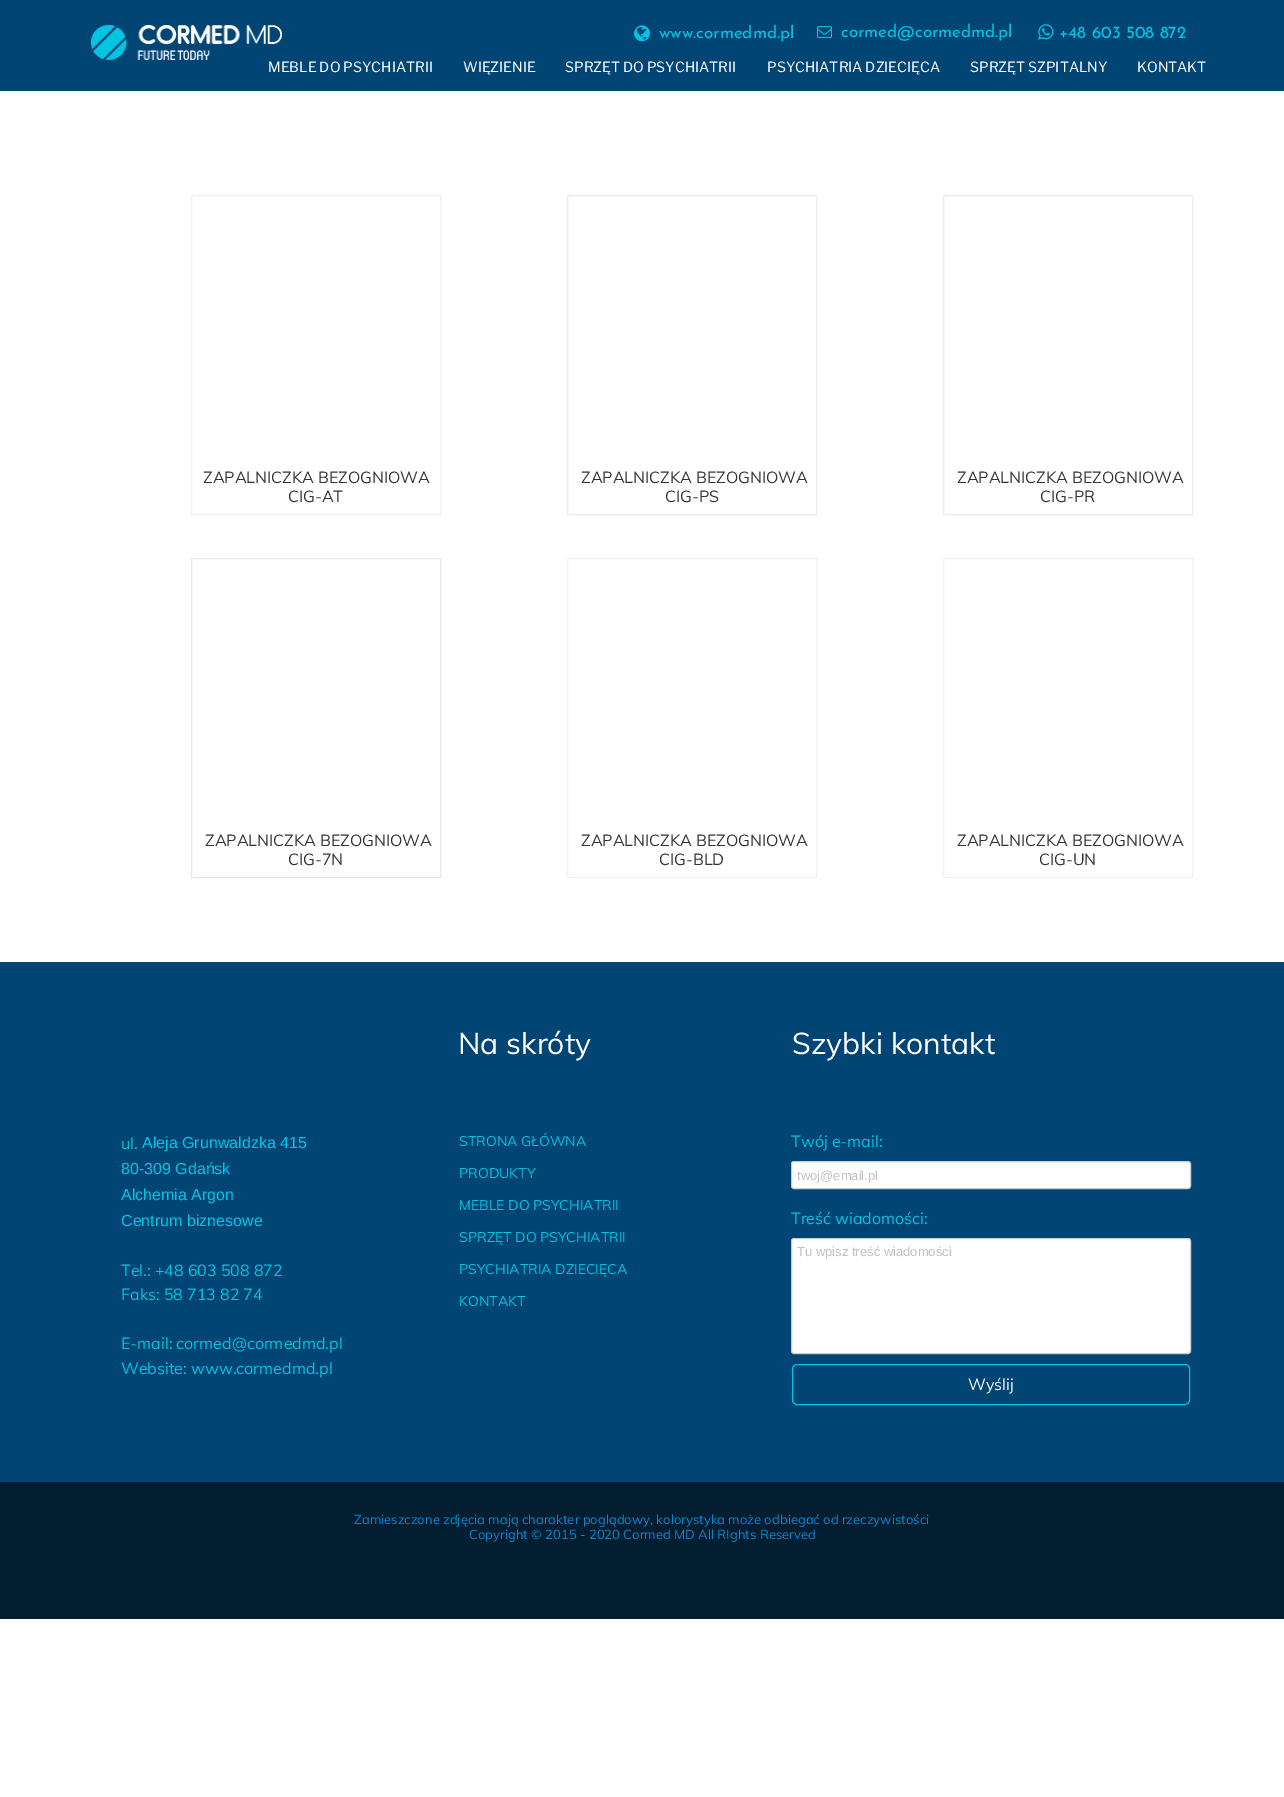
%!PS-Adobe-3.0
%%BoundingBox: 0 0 1284 1797
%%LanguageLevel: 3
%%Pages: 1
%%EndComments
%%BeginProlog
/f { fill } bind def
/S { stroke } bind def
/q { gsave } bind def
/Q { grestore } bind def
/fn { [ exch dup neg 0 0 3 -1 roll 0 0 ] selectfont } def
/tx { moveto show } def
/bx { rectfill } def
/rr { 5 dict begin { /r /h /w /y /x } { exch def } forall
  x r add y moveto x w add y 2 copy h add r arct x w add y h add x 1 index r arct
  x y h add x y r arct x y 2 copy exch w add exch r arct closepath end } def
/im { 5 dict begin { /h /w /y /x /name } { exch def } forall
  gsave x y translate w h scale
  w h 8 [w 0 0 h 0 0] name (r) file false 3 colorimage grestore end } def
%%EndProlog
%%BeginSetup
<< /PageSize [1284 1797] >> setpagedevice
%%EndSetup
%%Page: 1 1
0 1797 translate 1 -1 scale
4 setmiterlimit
1 setgray
0 0 1284 1797 bx
0.004 0.271 0.459 setrgbcolor
0 0 1284 91 bx
(image0.raw) 91 25 191 35 im
(image1.raw) 634 25 16 17 im
/JosefinSans-Thin 17 fn
0.012 0.773 0.89 setrgbcolor
(www.cormedmd.pl) 659 38 tx
(image2.raw) 817 26 15 12 im
(cormed@cormedmd.pl) 841 37 tx
(image3.raw) 1038 24 16 16 im
(+48 603 508 872) 1059 38 tx
/LibreFranklin-Thin 14 fn
1 setgray
(MEBLE DO PSYCHIATRII) 268 72 tx
(WIĘZIENIE) 463 72 tx
(SPRZĘT DO PSYCHIATRII) 565 72 tx
(PSYCHIATRIA DZIECIĘCA) 767 72 tx
(SPRZĘT SZPITALNY) 970 72 tx
(KONTAKT) 1137 72 tx
0.941 setgray
191.5 195.5 249 319 rectstroke
/Muli-Regular 16 fn
0.2 setgray
(ZAPALNICZKA BEZOGNIOWA) 203 483 tx
(CIG-AT) 288 502 tx
0.922 setgray
567.5 195.5 249 319 rectstroke
0.2 setgray
(ZAPALNICZKA BEZOGNIOWA) 581 483 tx
(CIG-PS) 665 502 tx
0.922 setgray
943.5 195.5 249 319 rectstroke
0.2 setgray
(ZAPALNICZKA BEZOGNIOWA) 957 483 tx
(CIG-PR) 1040 502 tx
0.91 setgray
191.5 558.5 249 319 rectstroke
0.2 setgray
(ZAPALNICZKA BEZOGNIOWA) 205 846 tx
(CIG-7N) 288 865 tx
0.941 0.949 0.941 setrgbcolor
567.5 558.5 249 319 rectstroke
0.2 setgray
(ZAPALNICZKA BEZOGNIOWA) 581 846 tx
(CIG-BLD) 659 865 tx
0.941 0.949 0.941 setrgbcolor
943.5 558.5 249 319 rectstroke
0.2 setgray
(ZAPALNICZKA BEZOGNIOWA) 957 846 tx
(CIG-UN) 1039 865 tx
0.004 0.271 0.459 setrgbcolor
0 962 1284 520 bx
/Muli-Regular 30 fn
1 setgray
(Na skróty) 458 1054 tx
(Szybki kontakt) 792 1054 tx
/Muli-Regular 16 fn
0.012 0.773 0.89 setrgbcolor
(ul.) 121 1149 tx
/LiberationSans-Regular 16 fn
(Aleja Grunwaldzka 415) 142 1148 tx
(80-309 Gdańsk) 121 1174 tx
(Alchemia Argon) 121 1200 tx
(Centrum biznesowe) 121 1226 tx
/Muli-Regular 16 fn
(Tel.: +48 603 508 872) 121 1276 tx
(Faks: 58 713 82 74) 121 1300 tx
(E-mail: cormed@cormedmd.pl) 121 1349 tx
(Website: www.cormedmd.pl) 121 1374 tx
/Muli-Regular 14 fn
(STRONA GŁÓWNA) 459 1146 tx
(PRODUKTY) 459 1178 tx
(MEBLE DO PSYCHIATRII) 459 1210 tx
(SPRZĘT DO PSYCHIATRII) 459 1242 tx
(PSYCHIATRIA DZIECIĘCA) 459 1274 tx
(KONTAKT) 459 1306 tx
/Muli-Regular 16 fn
(Twój e-mail:) 791 1147 tx
1 setgray
791.5 1161.5 399 27 2.5 rr q f Q
0.8 setgray
S
/LiberationSans-Regular 13 fn
0.761 setgray
(twoj@email.pl) 797 1180 tx
/Muli-Regular 16 fn
0.012 0.773 0.89 setrgbcolor
(Treść wiadomości:) 791 1224 tx
1 setgray
791.5 1238.5 399 115 2.5 rr q f Q
0.8 setgray
S
/LiberationSans-Regular 13 fn
0.761 setgray
(Tu wpisz treść wiadomości) 797 1256 tx
0.012 0.773 0.89 setrgbcolor
792.5 1364.5 397 40 4.5 rr S
/Muli-Regular 16 fn
1 setgray
(Wyślij) 968 1390 tx
0.008 0.118 0.188 setrgbcolor
0 1482 1284 137 bx
/Muli-Regular 13 fn
0.067 0.518 0.82 setrgbcolor
(Zamieszczone zdjęcia mają charakter poglądowy, kolorystyka może odbiegać od rzeczywistości) 354 1524 tx
(Copyright © 2015 - 2020 Cormed MD All RIghts Reserved) 469 1539 tx
showpage
%%EOF
